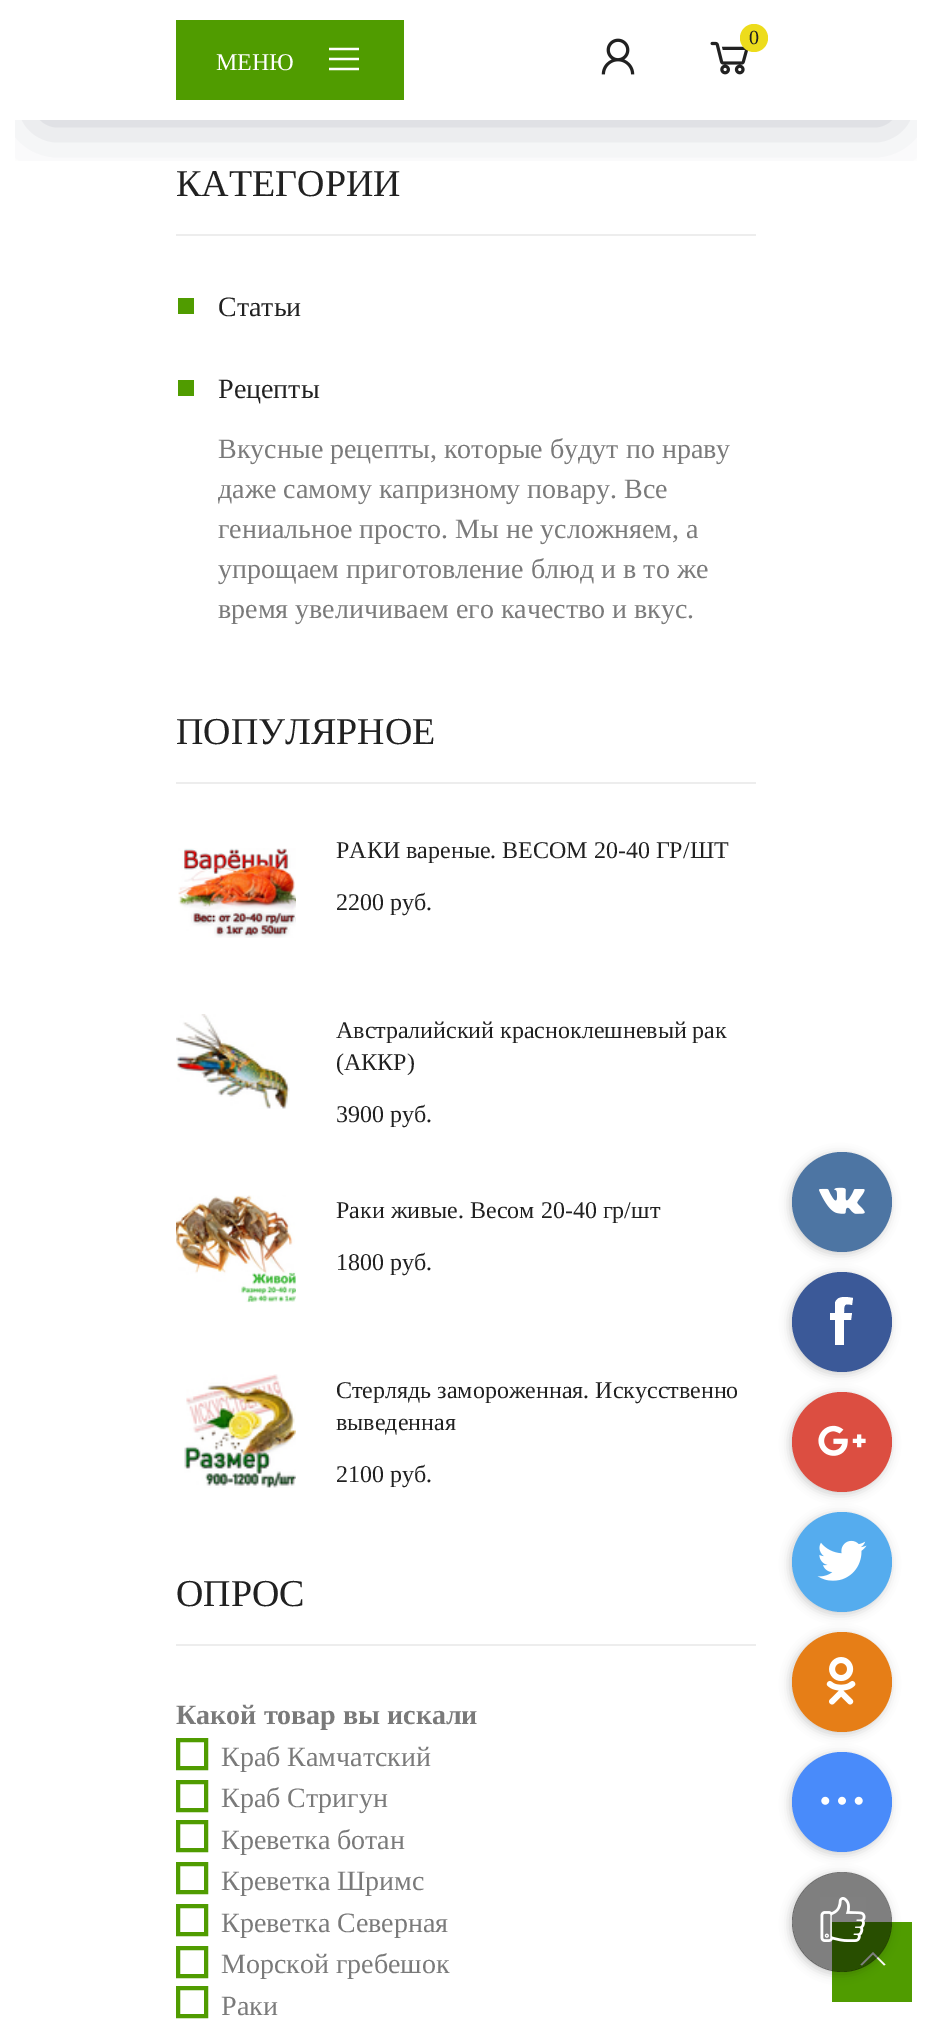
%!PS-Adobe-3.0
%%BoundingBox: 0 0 932 2022
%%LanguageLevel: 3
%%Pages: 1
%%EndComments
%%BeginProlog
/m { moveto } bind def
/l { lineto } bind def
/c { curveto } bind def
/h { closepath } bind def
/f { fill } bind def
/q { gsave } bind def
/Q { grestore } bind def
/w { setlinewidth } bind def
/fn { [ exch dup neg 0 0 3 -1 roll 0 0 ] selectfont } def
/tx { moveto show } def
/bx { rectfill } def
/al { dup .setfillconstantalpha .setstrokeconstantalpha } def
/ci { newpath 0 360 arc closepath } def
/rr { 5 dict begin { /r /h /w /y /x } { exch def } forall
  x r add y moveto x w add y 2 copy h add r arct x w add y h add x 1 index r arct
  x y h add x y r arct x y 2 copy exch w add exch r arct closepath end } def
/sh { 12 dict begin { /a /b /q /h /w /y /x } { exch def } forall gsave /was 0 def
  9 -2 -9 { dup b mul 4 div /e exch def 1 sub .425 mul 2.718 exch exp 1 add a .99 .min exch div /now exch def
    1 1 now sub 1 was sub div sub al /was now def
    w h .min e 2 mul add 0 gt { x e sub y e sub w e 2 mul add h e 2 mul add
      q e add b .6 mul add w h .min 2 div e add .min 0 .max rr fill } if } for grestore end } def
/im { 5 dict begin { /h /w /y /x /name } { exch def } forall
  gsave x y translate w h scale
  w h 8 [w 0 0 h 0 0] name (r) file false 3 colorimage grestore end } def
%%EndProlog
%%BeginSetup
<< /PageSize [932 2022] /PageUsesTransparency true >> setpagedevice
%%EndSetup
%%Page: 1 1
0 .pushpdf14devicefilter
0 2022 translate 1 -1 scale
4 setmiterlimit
1 setgray
0 0 932 2022 bx
q
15 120 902 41 rectclip
0.059 0.09 0.2 setrgbcolor
40 80 852 40 0 30 0.25 sh
Q
0.314 0.612 0 setrgbcolor
176 20 228 80 bx
/LiberationSerif-Regular 24 fn
1 setgray
(МЕНЮ) 216 70 tx
(image0.raw) 329 47 30 24 im
(image1.raw) 601 38 34 37 im
(image2.raw) 710 41 39 34 im
0.929 0.863 0.11 setrgbcolor
754 38 14 ci f
/LiberationSerif-Regular 20 fn
0.129 setgray
(0) 749 44 tx
0.929 setgray
176 234 580 2 bx
/LiberationSerif-Regular 38 fn
0.129 setgray
(КАТЕГОРИИ) 176 196 tx
0.314 0.612 0 setrgbcolor
178 298 16 16 bx
/LiberationSerif-Regular 28 fn
0.129 setgray
(Статьи) 218 316 tx
0.314 0.612 0 setrgbcolor
178 380 16 16 bx
0.129 setgray
(Рецепты) 218 398 tx
0.478 setgray
(Вкусные рецепты, которые будут по нраву) 218 458 tx
(даже самому капризному повару. Все) 218 498 tx
(гениальное просто. Мы не усложняем, а) 218 538 tx
(упрощаем приготовление блюд и в то же) 218 578 tx
(время увеличиваем его качество и вкус.) 218 618 tx
0.929 setgray
176 782 580 2 bx
/LiberationSerif-Regular 38 fn
0.129 setgray
(ПОПУЛЯРНОЕ) 176 744 tx
(image3.raw) 178 848 118 90 im
/LiberationSerif-Regular 24 fn
(РАКИ вареные. ВЕСОМ 20-40 ГР/ШТ) 336 858 tx
(2200 руб.) 336 910 tx
(image4.raw) 176 1014 114 95 im
(Австралийский красноклешневый рак) 336 1038 tx
(\(АККР\)) 336 1070 tx
(3900 руб.) 336 1122 tx
(image5.raw) 176 1195 120 108 im
(Раки живые. Весом 20-40 гр/шт) 336 1218 tx
(1800 руб.) 336 1270 tx
(image6.raw) 184 1374 112 114 im
(Стерлядь замороженная. Искусственно) 336 1398 tx
(выведенная) 336 1430 tx
(2100 руб.) 336 1482 tx
0.929 setgray
176 1644 580 2 bx
/LiberationSerif-Regular 38 fn
0.129 setgray
(ОПРОС) 176 1606 tx
/LiberationSerif-Bold 28 fn
0.478 setgray
(Какой товар вы искали) 176 1724 tx
0.314 0.612 0 setrgbcolor
4 w
178 1740 28 28 rectstroke
/LiberationSerif-Regular 28 fn
0.478 setgray
(Краб Камчатский) 221 1766 tx
0.314 0.612 0 setrgbcolor
178 1782 28 28 rectstroke
0.478 setgray
(Краб Стригун) 221 1807 tx
0.314 0.612 0 setrgbcolor
178 1822 28 28 rectstroke
0.478 setgray
(Креветка ботан) 221 1849 tx
0.314 0.612 0 setrgbcolor
178 1864 28 28 rectstroke
0.478 setgray
(Креветка Шримс) 221 1890 tx
0.314 0.612 0 setrgbcolor
178 1906 28 28 rectstroke
0.478 setgray
(Креветка Северная) 221 1932 tx
0.314 0.612 0 setrgbcolor
178 1948 28 28 rectstroke
0.478 setgray
(Морской гребешок) 221 1973 tx
0.314 0.612 0 setrgbcolor
178 1988 28 28 rectstroke
0.478 setgray
(Раки) 221 2015 tx
0 setgray
790 1154 100 100 50 5 0.2 sh
0.302 0.459 0.639 setrgbcolor
842 1202 50 ci f
(image7.raw) 819 1187 46 27 im
0 setgray
790 1274 100 100 50 5 0.2 sh
0.231 0.349 0.596 setrgbcolor
842 1322 50 ci f
1 setgray
830 1313 m 835 1313 l 835 1303 l 837 1295 847 1297 853 1298 c 852 1305 l 844 1303 844 1305 844 1313 c 852 1313 l 851 1320 l 844 1320 l 844 1345 l 835 1345 l 835 1320 l 830 1320 l h f
0 setgray
790 1394 100 100 50 5 0.2 sh
0.863 0.306 0.255 setrgbcolor
842 1442 50 ci f
(image8.raw) 818 1425 48 31 im
0 setgray
790 1514 100 100 50 5 0.2 sh
0.333 0.675 0.933 setrgbcolor
842 1562 50 ci f
(image9.raw) 817 1540 50 41 im
0 setgray
790 1634 100 100 50 5 0.2 sh
0.902 0.494 0.09 setrgbcolor
842 1682 50 ci f
(image10.raw) 826 1657 30 48 im
0 setgray
790 1754 100 100 50 5 0.2 sh
0.286 0.545 0.98 setrgbcolor
842 1802 50 ci f
(image11.raw) 821 1796 42 9 im
0.314 0.612 0 setrgbcolor
832 1922 80 80 bx
1 setgray
873 1952 m 860.5 1964.5 l 862 1965.5 l 873 1954.5 l 884 1965.5 l 885.5 1964.5 l h f
q
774 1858 m 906 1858 l 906 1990 l 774 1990 l h 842 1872 m 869.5 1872 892 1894.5 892 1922 c 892 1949.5 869.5 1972 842 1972 c 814.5 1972 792 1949.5 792 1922 c 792 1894.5 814.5 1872 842 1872 c h eoclip newpath
0 setgray
790 1874 100 100 50 5 0.2 sh
Q
0.5 al
0 setgray
842 1922 50 ci f
1 al
(image12.raw) 820 1897 46 45 im
.poppdf14devicefilter showpage
%%EOF
